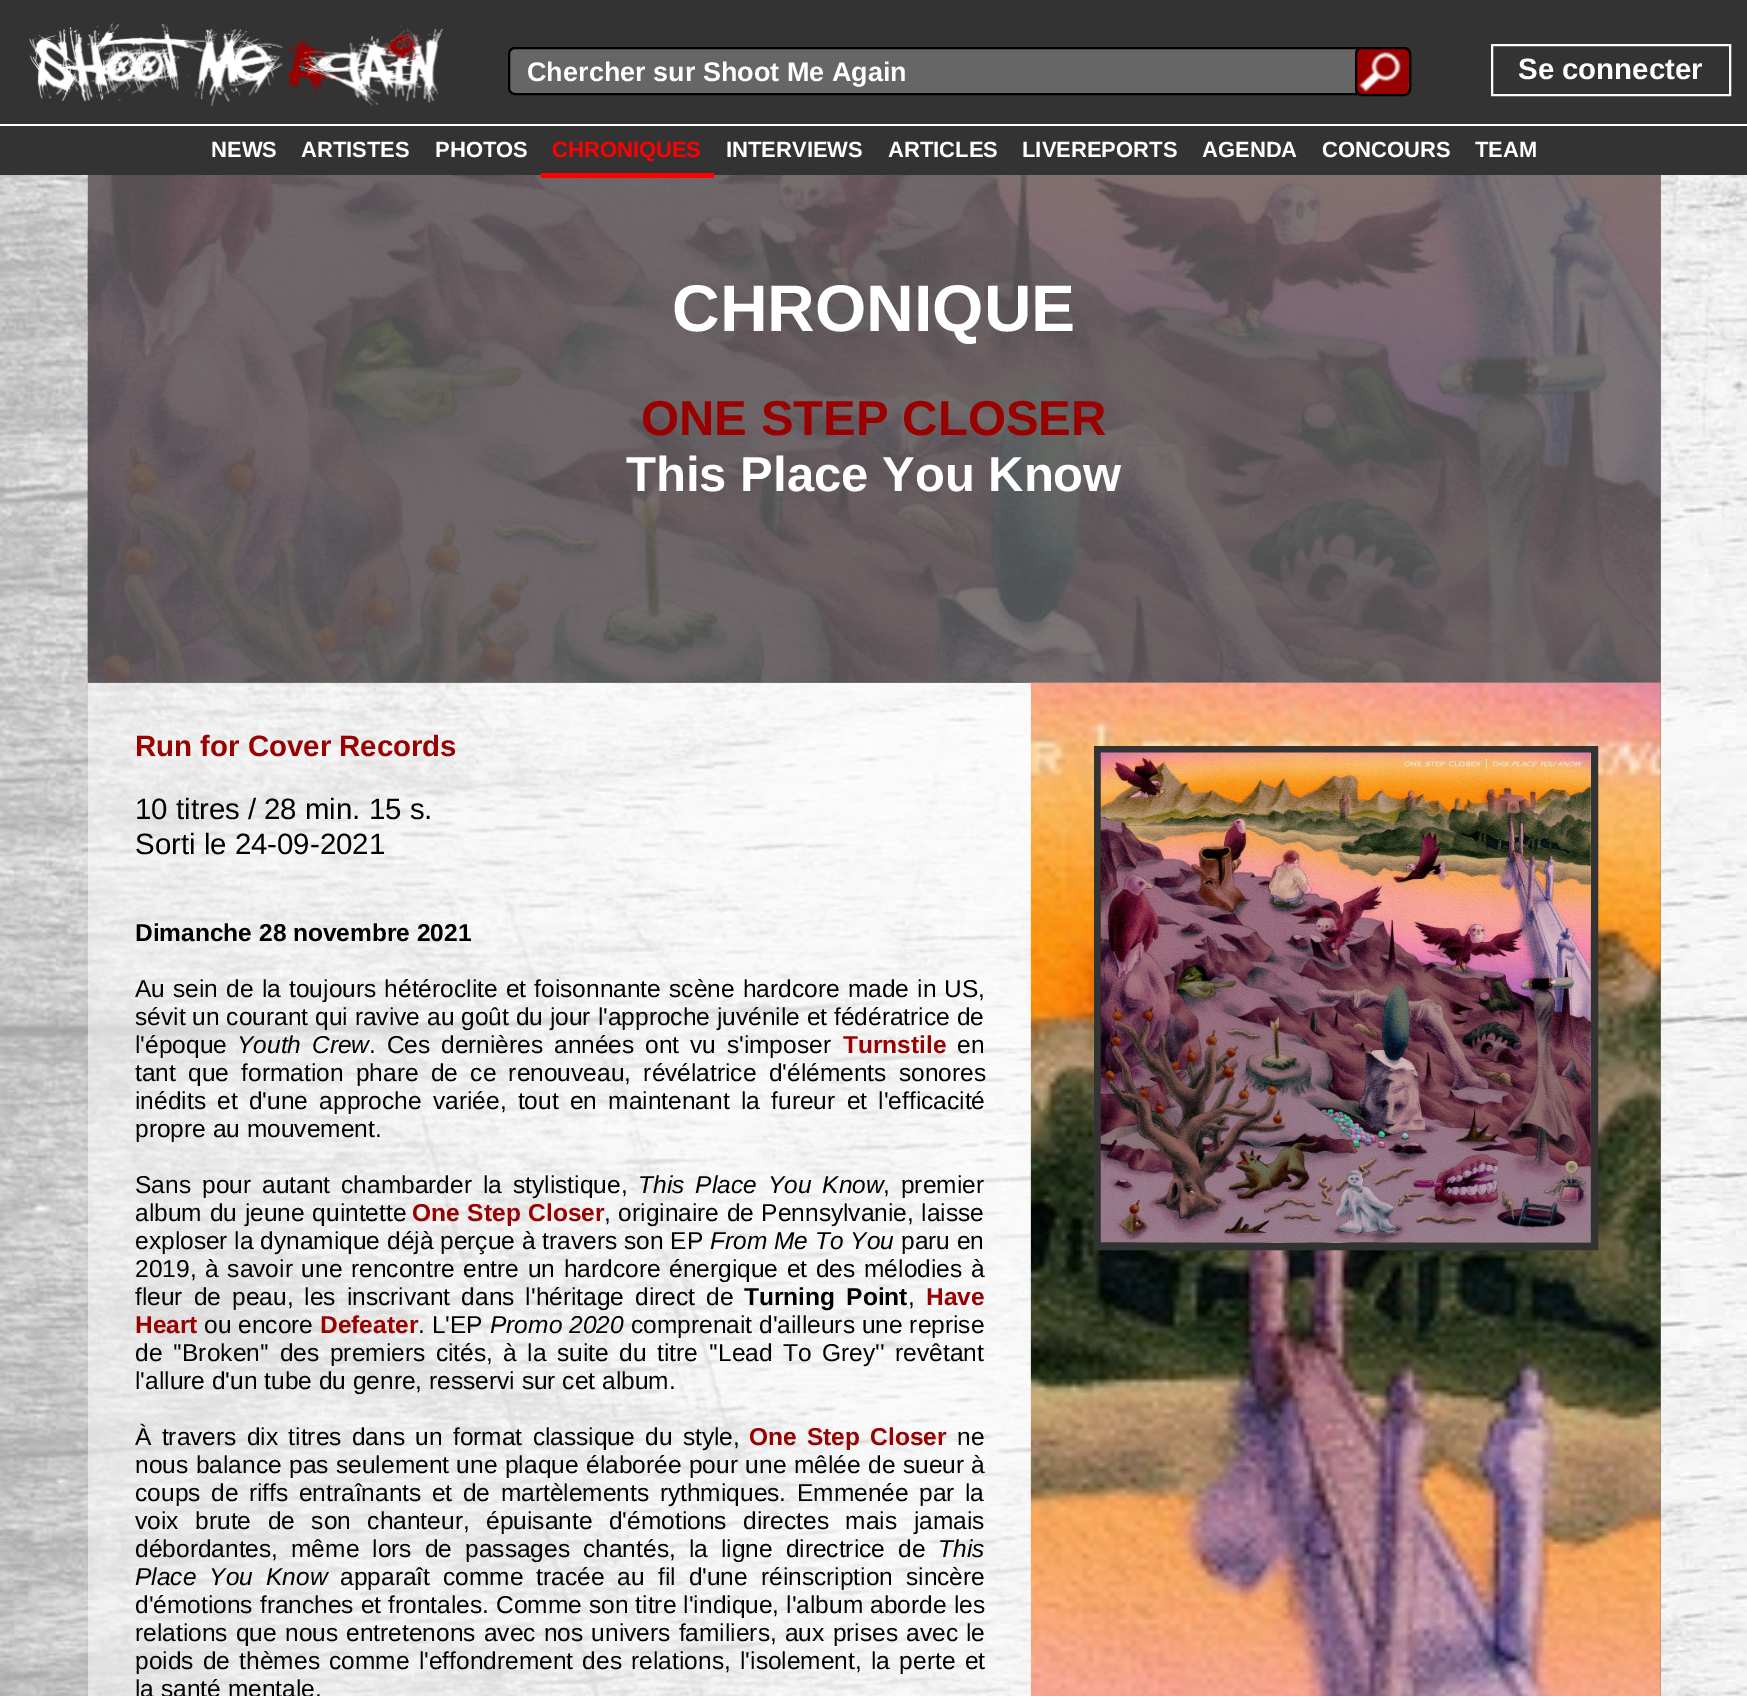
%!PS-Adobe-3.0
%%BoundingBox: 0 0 1747 1696
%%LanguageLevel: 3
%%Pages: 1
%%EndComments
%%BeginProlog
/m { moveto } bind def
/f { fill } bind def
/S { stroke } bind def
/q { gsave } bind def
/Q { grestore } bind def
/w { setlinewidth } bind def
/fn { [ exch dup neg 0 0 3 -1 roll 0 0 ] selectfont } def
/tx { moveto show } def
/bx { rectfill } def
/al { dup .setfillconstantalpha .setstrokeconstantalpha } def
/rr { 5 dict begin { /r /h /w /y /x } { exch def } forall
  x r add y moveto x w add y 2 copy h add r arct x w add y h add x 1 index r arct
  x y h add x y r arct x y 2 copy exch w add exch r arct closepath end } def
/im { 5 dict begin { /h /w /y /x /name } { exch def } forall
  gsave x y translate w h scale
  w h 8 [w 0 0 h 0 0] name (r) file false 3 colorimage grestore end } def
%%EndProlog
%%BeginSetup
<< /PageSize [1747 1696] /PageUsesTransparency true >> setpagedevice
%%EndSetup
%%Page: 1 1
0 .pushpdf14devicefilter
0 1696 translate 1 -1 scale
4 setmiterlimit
1 setgray
0 0 1747 1696 bx
(image0.raw) 0 175 1747 1521 im
0.2 setgray
0 0 1747 124 bx
(image1.raw) 29 23 415 84 im
0.4 setgray
509 48 901 46 6 rr q f Q
0 setgray
2 w
S
/LiberationSans-Bold 27 fn
1 setgray
(Chercher sur Shoot Me Again) 527 81 tx
0.6 0 0 setrgbcolor
1355 47 56 49 7 rr f
(image2.raw) 1359 51 50 41 im
0 setgray
1356 48 54 47 6 rr S
1 setgray
1492 45 238 50 rectstroke
/LiberationSans-Bold 29.4 fn
(Se connecter) 1518 79 tx
0.2 setgray
0 126 1747 49 bx
/LiberationSans-Bold 22 fn
1 setgray
(NEWS) 211 157 tx
(ARTISTES) 301 157 tx
(PHOTOS) 435 157 tx
0.1 al
88 175 1573 1521 bx
1 al
(image3.raw) 87 175 1574 508 im
0.8 al
0.392 setgray
88 175 1573 508 bx
1 al
1 0 0 setrgbcolor
541 173 173 5 bx
(CHRONIQUES) 552 157 tx
1 setgray
(INTERVIEWS) 726 157 tx
(ARTICLES) 888 157 tx
(LIVEREPORTS) 1022 157 tx
(AGENDA) 1202 157 tx
(CONCOURS) 1322 157 tx
(TEAM) 1475 157 tx
/LiberationSans-Bold 66 fn
(CHRONIQUE) 672 331 tx
/LiberationSans-Bold 49 fn
0.6 0 0 setrgbcolor
(ONE STEP CLOSER) 641 435 tx
1 setgray
(This Place You Know) 626 491 tx
0.502 setgray
1660 683 1 1013 bx
(image4.raw) 1030 682 631 1014 im
0.5 al
1 setgray
88 683 943 1013 bx
/LiberationSans-Bold 29.4 fn
1 al
0.6 0 0 setrgbcolor
(Run for Cover Records) 135 756 tx
/LiberationSans-Regular 29.4 fn
0 setgray
(10 titres / 28 min. 15 s.) 135 819 tx
(Sorti le 24-09-2021) 135 854 tx
/LiberationSans-Bold 24.5 fn
(Dimanche 28 novembre 2021) 135 941 tx
/LiberationSans-Regular 24.5 fn
135 997 m 1.4 0 32 (Au sein de la toujours hétéroclite et foisonnante scène hardcore made in US,) widthshow
135 1025 m 0.1 0 32 (sévit un courant qui ravive au goût du jour l'approche juvénile et fédératrice de) widthshow
(l'époque) 135 1053 tx
/LiberationSans-Italic 24.5 fn
237 1053 m 4 0 32 (Youth Crew) widthshow
/LiberationSans-Regular 24.5 fn
369 1053 m 4 0 32 (. Ces dernières années ont vu s'imposer) widthshow
/LiberationSans-Bold 24.5 fn
0.6 0 0 setrgbcolor
(Turnstile) 843 1053 tx
/LiberationSans-Regular 24.5 fn
0 setgray
(en) 957 1053 tx
135 1081 m 5.5 0 32 (tant que formation phare de ce renouveau, révélatrice d'éléments sonores) widthshow
135 1109 m 4.5 0 32 (inédits et d'une approche variée, tout en maintenant la fureur et l'efficacité) widthshow
(propre au mouvement.) 135 1137 tx
135 1193 m 4.25 0 32 (Sans pour autant chambarder la stylistique,) widthshow
/LiberationSans-Italic 24.5 fn
638 1193 m 4.25 0 32 (This Place You Know) widthshow
/LiberationSans-Regular 24.5 fn
883 1193 m 4.25 0 32 (, premier) widthshow
135 1221 m 1 0 32 (album du jeune quintette) widthshow
/LiberationSans-Bold 24.5 fn
0.6 0 0 setrgbcolor
412 1221 m 1 0 32 (One Step Closer) widthshow
/LiberationSans-Regular 24.5 fn
0 setgray
604 1221 m 0.7 0 32 (, originaire de Pennsylvanie, laisse) widthshow
(exploser la dynamique déjà perçue à travers son EP) 135 1249 tx
/LiberationSans-Italic 24.5 fn
(From Me To You) 710 1249 tx
/LiberationSans-Regular 24.5 fn
(paru en) 901 1249 tx
135 1277 m 1.9 0 32 (2019, à savoir une rencontre entre un hardcore énergique et des mélodies à) widthshow
135 1305 m 4.25 0 32 (fleur de peau, les inscrivant dans l'héritage direct de) widthshow
/LiberationSans-Bold 24.5 fn
744 1305 m 4.25 0 32 (Turning Point) widthshow
/LiberationSans-Regular 24.5 fn
(,) 908 1305 tx
/LiberationSans-Bold 24.5 fn
0.6 0 0 setrgbcolor
(Have) 926 1305 tx
(Heart) 135 1333 tx
/LiberationSans-Regular 24.5 fn
0 setgray
(ou encore) 204 1333 tx
/LiberationSans-Bold 24.5 fn
0.6 0 0 setrgbcolor
(Defeater) 320 1333 tx
/LiberationSans-Regular 24.5 fn
0 setgray
(. L'EP) 418 1333 tx
/LiberationSans-Italic 24.5 fn
(Promo 2020) 490 1333 tx
/LiberationSans-Regular 24.5 fn
(comprenait d'ailleurs une reprise) 631 1333 tx
135 1361 m 3.75 0 32 (de ''Broken'' des premiers cités, à la suite du titre ''Lead To Grey'' revêtant) widthshow
(l'allure d'un tube du genre, resservi sur cet album.) 135 1389 tx
135 1445 m 3.5 0 32 (À travers dix titres dans un format classique du style,) widthshow
/LiberationSans-Bold 24.5 fn
0.6 0 0 setrgbcolor
749 1445 m 3.5 0 32 (One Step Closer) widthshow
/LiberationSans-Regular 24.5 fn
0 setgray
(ne) 957 1445 tx
135 1473 m 0.7 0 32 (nous balance pas seulement une plaque élaborée pour une mêlée de sueur à) widthshow
135 1501 m 3.75 0 32 (coups de riffs entraînants et de martèlements rythmiques. Emmenée par la) widthshow
135 1529 m 9.75 0 32 (voix brute de son chanteur, épuisante d'émotions directes mais jamais) widthshow
135 1557 m 6.25 0 32 (débordantes, même lors de passages chantés, la ligne directrice de) widthshow
/LiberationSans-Italic 24.5 fn
(This) 938 1557 tx
135 1585 m 6.25 0 32 (Place You Know) widthshow
/LiberationSans-Regular 24.5 fn
340 1585 m 6.25 0 32 (apparaît comme tracée au fil d'une réinscription sincère) widthshow
135 1613 m 0.25 0 32 (d'émotions franches et frontales. Comme son titre l'indique, l'album aborde les) widthshow
135 1641 m 1.4 0 32 (relations que nous entretenons avec nos univers familiers, aux prises avec le) widthshow
135 1669 m 2.5 0 32 (poids de thèmes comme l'effondrement des relations, l'isolement, la perte et) widthshow
(la santé mentale.) 135 1697 tx
0.2 setgray
7 w
1097.5 749.5 497 497 rectstroke
(image5.raw) 1100 752 491 491 im
.poppdf14devicefilter showpage
%%EOF
